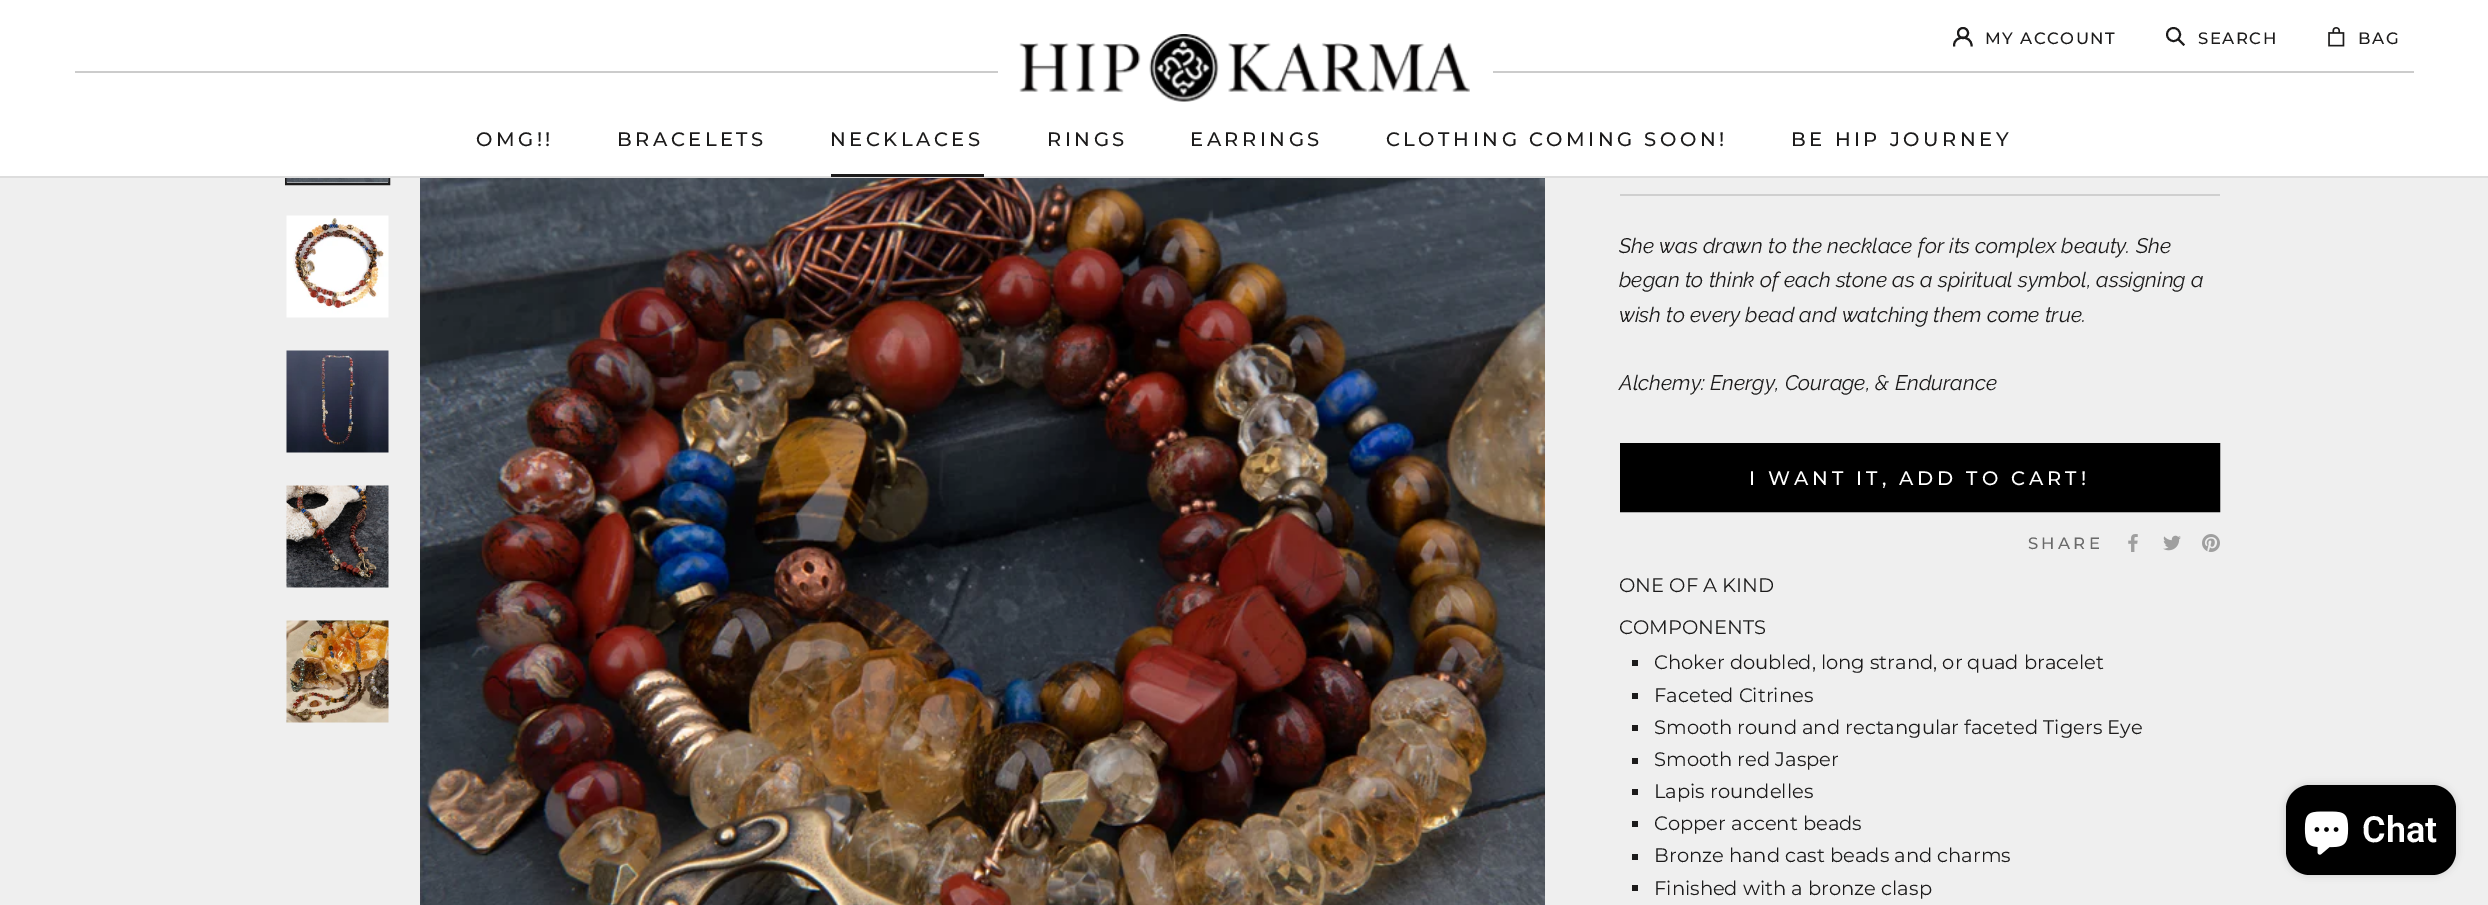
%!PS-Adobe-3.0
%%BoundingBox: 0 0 2488 905
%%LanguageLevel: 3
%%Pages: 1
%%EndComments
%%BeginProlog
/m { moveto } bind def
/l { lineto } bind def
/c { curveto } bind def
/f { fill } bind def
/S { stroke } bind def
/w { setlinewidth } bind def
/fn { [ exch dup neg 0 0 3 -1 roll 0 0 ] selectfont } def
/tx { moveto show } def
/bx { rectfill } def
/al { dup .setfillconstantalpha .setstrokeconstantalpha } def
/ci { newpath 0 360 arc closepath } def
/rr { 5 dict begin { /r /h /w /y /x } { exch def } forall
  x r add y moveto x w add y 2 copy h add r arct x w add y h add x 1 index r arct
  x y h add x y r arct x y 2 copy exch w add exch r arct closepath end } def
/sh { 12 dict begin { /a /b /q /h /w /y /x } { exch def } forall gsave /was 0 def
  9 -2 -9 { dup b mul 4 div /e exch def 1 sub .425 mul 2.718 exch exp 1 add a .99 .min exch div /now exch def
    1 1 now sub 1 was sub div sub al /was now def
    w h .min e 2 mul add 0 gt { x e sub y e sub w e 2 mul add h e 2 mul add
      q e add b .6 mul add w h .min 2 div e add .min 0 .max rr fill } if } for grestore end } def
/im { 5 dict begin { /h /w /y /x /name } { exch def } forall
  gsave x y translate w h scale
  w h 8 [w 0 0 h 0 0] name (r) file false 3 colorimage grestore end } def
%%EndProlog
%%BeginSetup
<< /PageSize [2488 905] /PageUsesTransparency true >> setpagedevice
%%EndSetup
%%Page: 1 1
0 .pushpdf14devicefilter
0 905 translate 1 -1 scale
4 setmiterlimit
0.937 setgray
0 0 2488 905 bx
0.11 0.106 0.106 setrgbcolor
2 w
286 81 103 103 rectstroke
1 setgray
0 0 2488 176 bx
0.867 setgray
0 176 2488 2 bx
(image0.raw) 1019 34 451 68 im
0.11 0.106 0.106 setrgbcolor
2 setlinecap
1954 45.5 m 1954 35 1971.5 35 1971.5 45.5 c S
0 setlinecap
1963 33 5 ci S
/Montserrat-Medium 16.5 fn
1985 44 m 1.5 0 (MY ACCOUNT) ashow
1.9 w
2 setlinecap
2183.5 44.5 m 2178.5 39.5 l S
0 setlinecap
2173.5 34.5 6.5 ci S
2198 44 m 1.5 0 (SEARCH) ashow
(image1.raw) 2328 27 17 20 im
2358 44 m 1.5 0 (BAG) ashow
0.8 setgray
1493 71 921 2 bx
75 71 923 2 bx
/Montserrat-Medium 19.5 fn
0.11 0.106 0.106 setrgbcolor
476 146 m 3.5 0 (OMG!!) ashow
617 146 m 3.5 0 (BRACELETS) ashow
830 146 m 3.5 0 (NECKLACES) ashow
831 174 153 3 bx
1047 146 m 3.5 0 (RINGS) ashow
1190 146 m 3.5 0 (EARRINGS) ashow
1386 146 m 3.5 0 (CLOTHING COMING SOON!) ashow
1791 146 m 3.5 0 (BE HIP JOURNEY) ashow
(image2.raw) 286 178 103 5 im
(image3.raw) 286 215 103 103 im
(image4.raw) 286 350 103 103 im
(image5.raw) 286 485 103 103 im
(image6.raw) 286 620 103 103 im
(image7.raw) 420 178 1125 727 im
0.812 setgray
1620 194 600 2 bx
/Raleway-ThinItalic 21 fn
0.11 0.106 0.106 setrgbcolor
(She was drawn to the necklace for its complex beauty. She) 1619 253 tx
(began to think of each stone as a spiritual symbol, assigning a) 1619 287 tx
(wish to every bead and watching them come true.) 1619 322 tx
(Alchemy: Energy, Courage, & Endurance) 1619 390 tx
0 setgray
2 w
1621 444 598 67 rectstroke
1622 445 596 65 bx
/Montserrat-Medium 19.5 fn
1 setgray
1749 485 m 3.9 0 (I WANT IT, ADD TO CART!) ashow
/Montserrat-Medium 16.5 fn
0.416 setgray
2028 549 m 3.25 0 (SHARE) ashow
(image8.raw) 2128 534 10 18 im
(image9.raw) 2163 535 18 16 im
(image10.raw) 2202 534 18 18 im
/Montserrat-Regular 19.5 fn
0.11 0.106 0.106 setrgbcolor
(ONE OF A KIND) 1619 592 tx
(COMPONENTS) 1619 634 tx
1632 660 6 6 bx
(Choker doubled, long strand, or quad bracelet) 1654 669 tx
1632 693 6 6 bx
(Faceted Citrines) 1654 702 tx
1632 725 6 6 bx
(Smooth round and rectangular faceted Tigers Eye) 1654 734 tx
1632 758 6 6 bx
(Smooth red Jasper) 1654 766 tx
1632 789 6 6 bx
(Lapis roundelles) 1654 798 tx
1632 821 6 6 bx
(Copper accent beads) 1654 830 tx
1632 854 6 6 bx
(Bronze hand cast beads and charms) 1654 862 tx
1632 885 6 6 bx
(Finished with a bronze clasp) 1654 895 tx
0 setgray
2286 785 170 90 24 4 0.15 sh
2286 785 170 90 24 rr f
(image11.raw) 2304 811 45 44 im
/Roboto-SemiBold 36 fn
1 setgray
(Chat) 2362 842 tx
.poppdf14devicefilter showpage
%%EOF
